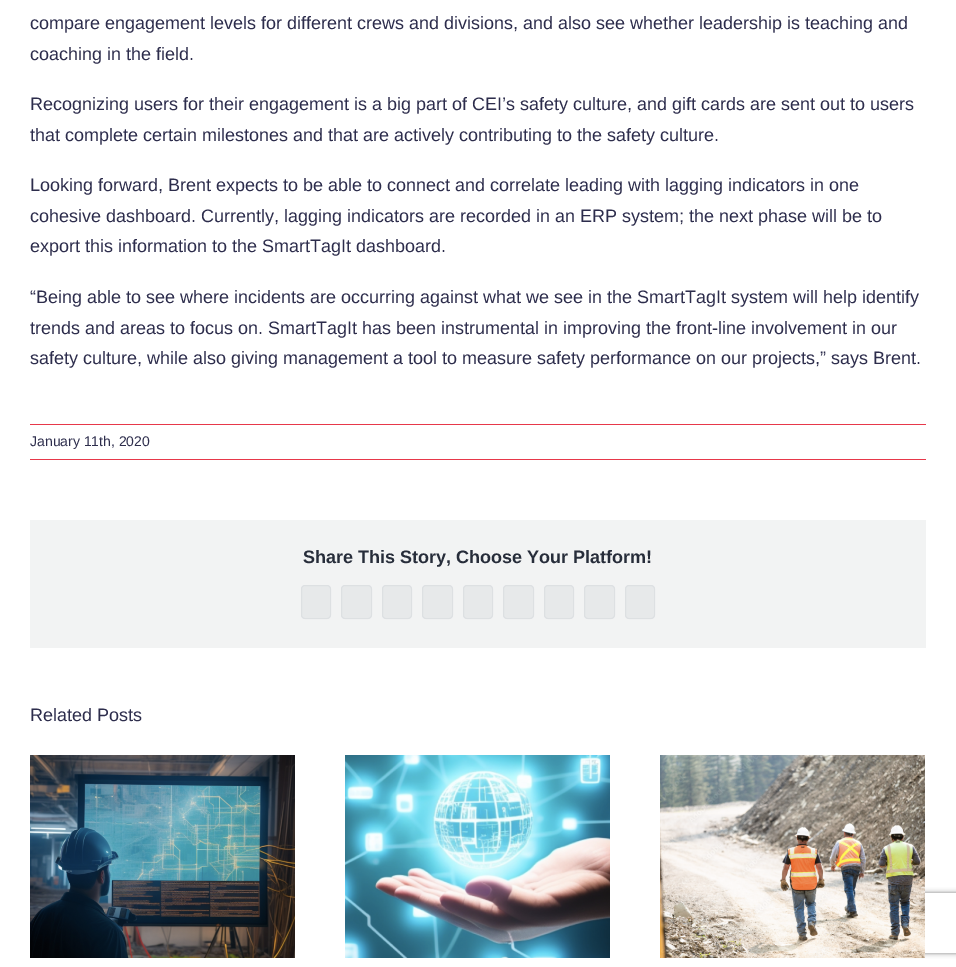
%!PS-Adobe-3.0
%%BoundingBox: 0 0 956 967
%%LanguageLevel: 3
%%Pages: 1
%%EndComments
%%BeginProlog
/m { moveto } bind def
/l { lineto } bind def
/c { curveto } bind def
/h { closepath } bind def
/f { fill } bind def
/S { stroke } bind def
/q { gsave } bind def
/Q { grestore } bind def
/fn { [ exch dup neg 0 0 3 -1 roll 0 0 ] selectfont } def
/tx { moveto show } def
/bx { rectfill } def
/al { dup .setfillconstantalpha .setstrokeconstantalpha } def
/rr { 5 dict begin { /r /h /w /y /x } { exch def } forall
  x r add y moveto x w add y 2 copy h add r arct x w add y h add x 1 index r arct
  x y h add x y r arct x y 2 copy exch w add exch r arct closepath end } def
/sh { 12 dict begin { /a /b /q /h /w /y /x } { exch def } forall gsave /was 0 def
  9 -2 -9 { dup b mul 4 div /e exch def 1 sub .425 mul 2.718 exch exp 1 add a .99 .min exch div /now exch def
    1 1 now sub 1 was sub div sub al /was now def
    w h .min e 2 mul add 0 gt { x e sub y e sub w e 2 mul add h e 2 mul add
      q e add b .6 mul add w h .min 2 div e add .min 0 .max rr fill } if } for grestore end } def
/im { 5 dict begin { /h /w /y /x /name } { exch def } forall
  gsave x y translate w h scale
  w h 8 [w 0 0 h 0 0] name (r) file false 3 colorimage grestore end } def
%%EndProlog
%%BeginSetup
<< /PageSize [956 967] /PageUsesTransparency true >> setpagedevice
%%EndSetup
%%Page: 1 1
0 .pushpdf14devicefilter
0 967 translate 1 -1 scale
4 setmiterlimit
1 setgray
0 0 956 967 bx
/LiberationSans-Regular 18 fn
0.176 0.176 0.298 setrgbcolor
(compare engagement levels for different crews and divisions, and also see whether leadership is teaching and) 30 29 tx
(coaching in the field.) 30 60 tx
(Recognizing users for their engagement is a big part of CEI’s safety culture, and gift cards are sent out to users) 30 110 tx
(that complete certain milestones and that are actively contributing to the safety culture.) 30 141 tx
(Looking forward, Brent expects to be able to connect and correlate leading with lagging indicators in one) 30 191 tx
(cohesive dashboard. Currently, lagging indicators are recorded in an ERP system; the next phase will be to) 30 222 tx
(export this information to the SmartTagIt dashboard.) 30 252 tx
(“Being able to see where incidents are occurring against what we see in the SmartTagIt system will help identify) 30 303 tx
(trends and areas to focus on. SmartTagIt has been instrumental in improving the front-line involvement in our) 30 334 tx
(safety culture, while also giving management a tool to measure safety performance on our projects,” says Brent.) 30 364 tx
0.906 0.22 0.29 setrgbcolor
30 424 896 1 bx
30 459 896 1 bx
/LiberationSans-Regular 14 fn
0.176 0.176 0.298 setrgbcolor
(January 11th, 2020) 30 446 tx
0.949 0.953 0.953 setrgbcolor
30 520 896 128 bx
/LiberationSans-Bold 18 fn
0.153 0.176 0.227 setrgbcolor
(Share This Story, Choose Your Platform!) 303 563 tx
0.906 0.914 0.918 setrgbcolor
301 585 30 34 4 rr f
0.12 al
0.588 0.624 0.675 setrgbcolor
301.5 585.5 29 33 3.5 rr S
1 al
0.906 0.914 0.918 setrgbcolor
341 585 31 34 4 rr f
0.12 al
0.588 0.624 0.675 setrgbcolor
341.5 585.5 30 33 3.5 rr S
1 al
0.906 0.914 0.918 setrgbcolor
382 585 30 34 4 rr f
0.12 al
0.588 0.624 0.675 setrgbcolor
382.5 585.5 29 33 3.5 rr S
1 al
0.906 0.914 0.918 setrgbcolor
422 585 31 34 4 rr f
0.12 al
0.588 0.624 0.675 setrgbcolor
422.5 585.5 30 33 3.5 rr S
1 al
0.906 0.914 0.918 setrgbcolor
463 585 30 34 4 rr f
0.12 al
0.588 0.624 0.675 setrgbcolor
463.5 585.5 29 33 3.5 rr S
1 al
0.906 0.914 0.918 setrgbcolor
503 585 31 34 4 rr f
0.12 al
0.588 0.624 0.675 setrgbcolor
503.5 585.5 30 33 3.5 rr S
1 al
0.906 0.914 0.918 setrgbcolor
544 585 30 34 4 rr f
0.12 al
0.588 0.624 0.675 setrgbcolor
544.5 585.5 29 33 3.5 rr S
1 al
0.906 0.914 0.918 setrgbcolor
584 585 31 34 4 rr f
0.12 al
0.588 0.624 0.675 setrgbcolor
584.5 585.5 30 33 3.5 rr S
1 al
0.906 0.914 0.918 setrgbcolor
625 585 30 34 4 rr f
0.12 al
0.588 0.624 0.675 setrgbcolor
625.5 585.5 29 33 3.5 rr S
/LiberationSans-Regular 18 fn
1 al
0.176 0.176 0.298 setrgbcolor
(Related Posts) 30 721 tx
(image0.raw) 30 755 265 203 im
(image1.raw) 345 755 265 203 im
q
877 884 m 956 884 l 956 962 l 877 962 l h 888 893 m 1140 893 l 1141 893 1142 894 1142 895 c 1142 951 l 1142 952 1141 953 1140 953 c 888 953 l 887 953 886 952 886 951 c 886 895 l 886 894 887 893 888 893 c h eoclip newpath
0.502 setgray
886 893 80 60 2 2.5 1 sh
Q
(image2.raw) 660 755 265 203 im
.poppdf14devicefilter showpage
%%EOF
